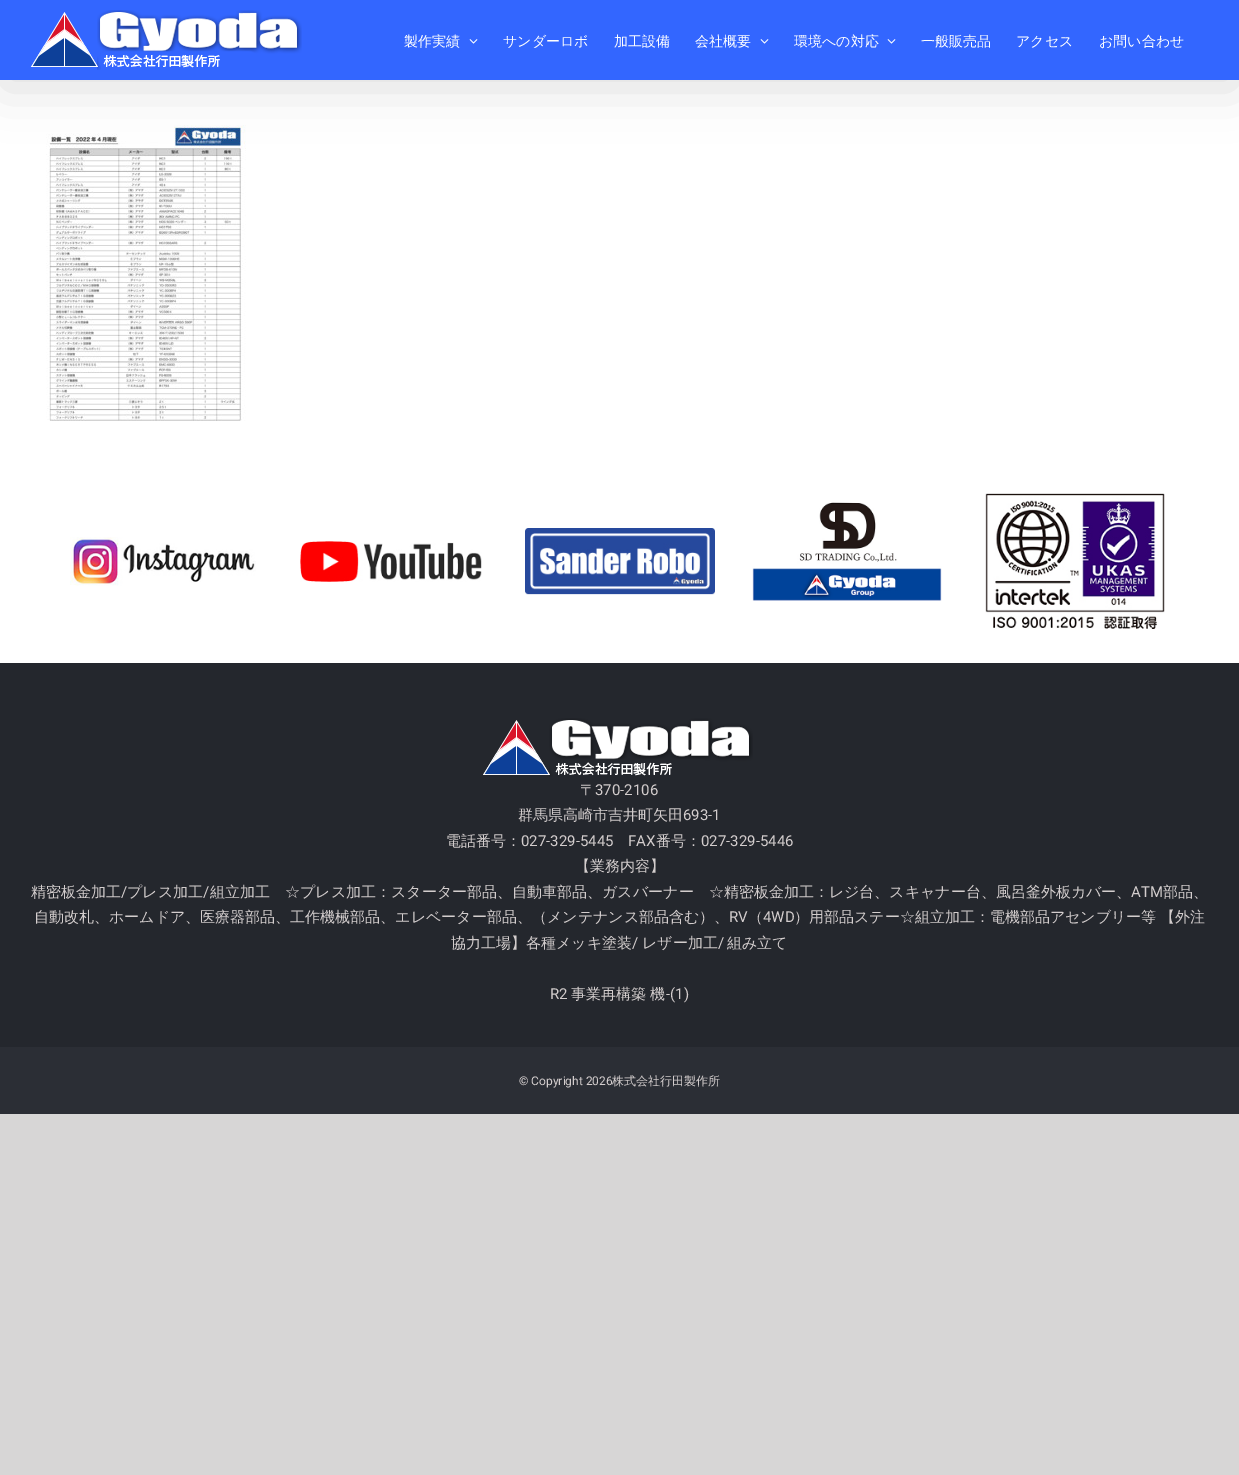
%!PS-Adobe-3.0
%%BoundingBox: 0 0 1239 1475
%%LanguageLevel: 3
%%Pages: 1
%%EndComments
%%BeginProlog
/m { moveto } bind def
/fn { [ exch dup neg 0 0 3 -1 roll 0 0 ] selectfont } def
/tx { moveto show } def
/bx { rectfill } def
/al { dup .setfillconstantalpha .setstrokeconstantalpha } def
/rr { 5 dict begin { /r /h /w /y /x } { exch def } forall
  x r add y moveto x w add y 2 copy h add r arct x w add y h add x 1 index r arct
  x y h add x y r arct x y 2 copy exch w add exch r arct closepath end } def
/sh { 12 dict begin { /a /b /q /h /w /y /x } { exch def } forall gsave /was 0 def
  9 -2 -9 { dup b mul 4 div /e exch def 1 sub .425 mul 2.718 exch exp 1 add a .99 .min exch div /now exch def
    1 1 now sub 1 was sub div sub al /was now def
    w h .min e 2 mul add 0 gt { x e sub y e sub w e 2 mul add h e 2 mul add
      q e add b .6 mul add w h .min 2 div e add .min 0 .max rr fill } if } for grestore end } def
/im { 5 dict begin { /h /w /y /x /name } { exch def } forall
  gsave x y translate w h scale
  w h 8 [w 0 0 h 0 0] name (r) file false 3 colorimage grestore end } def
%%EndProlog
%%BeginSetup
<< /PageSize [1239 1475] /PageUsesTransparency true >> setpagedevice
%%EndSetup
%%Page: 1 1
0 .pushpdf14devicefilter
0 1475 translate 1 -1 scale
4 setmiterlimit
0.843 0.839 0.839 setrgbcolor
0 0 1239 1475 bx
1 setgray
0 80 1239 583 bx
(image2.raw) 46 125 200 296 im
0 setgray
2 12 1235 76 0 25 0.14 sh
0.2 0.4 1 setrgbcolor
0 0 1239 80 bx
(image0.raw) 31 10 271 60 im
/WenQuanYiZenHei-Medium 14 fn
1 setgray
(製作実績) 404 46 tx
(image1.raw) 469 39 9 5 im
(サンダーロボ) 503 46 tx
(加工設備) 614 46 tx
(会社概要) 695 46 tx
(image1.raw) 760 39 9 5 im
(環境への対応) 794 46 tx
(image1.raw) 887 39 9 5 im
(一般販売品) 921 46 tx
(アクセス) 1016 46 tx
(お問い合わせ) 1099 46 tx
(image3.raw) 70 537 186 49 im
(image4.raw) 300 541 182 41 im
(image5.raw) 525 528 190 67 im
(image6.raw) 752 502 190 99 im
(image7.raw) 985 493 180 136 im
0.141 0.153 0.176 setrgbcolor
0 663 1239 384 bx
(image8.raw) 483 718 270 59 im
/WenQuanYiZenHei-Medium 15 fn
0.827 0.804 0.804 setrgbcolor
(〒) 580 795 tx
/Roboto-Regular 15 fn
(370-2106) 595 795 tx
/WenQuanYiZenHei-Medium 15 fn
(群馬県高崎市吉井町矢田) 518 820 tx
/Roboto-Regular 15 fn
(693-1) 683 820 tx
/WenQuanYiZenHei-Medium 15 fn
(電話番号：) 446 846 tx
/Roboto-Regular 15 fn
(027-329-5445) 521 846 tx
(FAX) 628 846 tx
/WenQuanYiZenHei-Medium 15 fn
(番号：) 656 846 tx
/Roboto-Regular 15 fn
(027-329-5446) 701 846 tx
/WenQuanYiZenHei-Medium 15 fn
(【業務内容】) 575 871 tx
(精密板金加工) 31 897 tx
/Roboto-Regular 15 fn
(/) 121 897 tx
/WenQuanYiZenHei-Medium 15 fn
(プレス加工) 127 897 tx
/Roboto-Regular 15 fn
(/) 203 897 tx
/WenQuanYiZenHei-Medium 15 fn
(組立加工　☆プレス加工：スターター部品、自動車部品、ガスバーナー　☆精密板金加工：レジ台、スキャナー台、風呂釜外板カバー、) 210 897 tx
/Roboto-Regular 15 fn
(ATM) 1131 897 tx
/WenQuanYiZenHei-Medium 15 fn
(部品、) 1163 897 tx
(自動改札、ホームドア、医療器部品、工作機械部品、エレベーター部品、（メンテナンス部品含む）、) 34 922 tx
/Roboto-Regular 15 fn
(RV) 729 922 tx
/WenQuanYiZenHei-Medium 15 fn
(（) 748 922 tx
/Roboto-Regular 15 fn
(4WD) 763 922 tx
/WenQuanYiZenHei-Medium 15 fn
794 922 m -1 0 32 (）用部品ステー☆組立加工：電機部品アセンブリー等 【外注) widthshow
(協力工場】各種メッキ塗装) 451 948 tx
/Roboto-Regular 15 fn
(/) 632 948 tx
/WenQuanYiZenHei-Medium 15 fn
(レザー加工) 642 948 tx
/Roboto-Regular 15 fn
(/) 718 948 tx
/WenQuanYiZenHei-Medium 15 fn
(組み立て) 727 948 tx
/Roboto-Regular 15 fn
(R2) 550 999 tx
/WenQuanYiZenHei-Medium 15 fn
(事業再構築 機) 571 999 tx
/Roboto-Regular 15 fn
(-\(1\)) 666 999 tx
0.169 0.18 0.208 setrgbcolor
0 1047 1239 67 bx
/Roboto-Regular 12 fn
0.827 0.804 0.804 setrgbcolor
(© Copyright 2026) 519 1085 tx
/WenQuanYiZenHei-Medium 12 fn
(株式会社行田製作所) 612 1085 tx
.poppdf14devicefilter showpage
%%EOF
